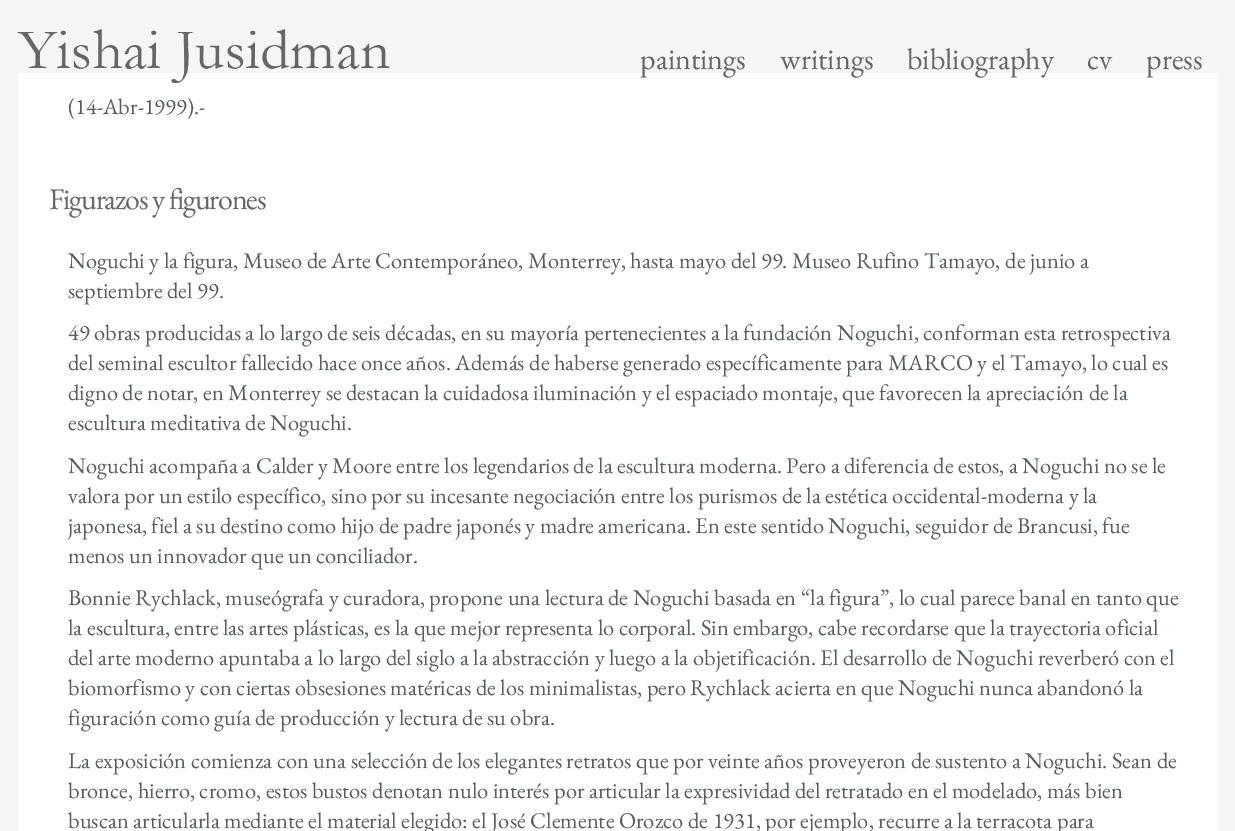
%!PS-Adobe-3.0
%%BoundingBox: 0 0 1235 831
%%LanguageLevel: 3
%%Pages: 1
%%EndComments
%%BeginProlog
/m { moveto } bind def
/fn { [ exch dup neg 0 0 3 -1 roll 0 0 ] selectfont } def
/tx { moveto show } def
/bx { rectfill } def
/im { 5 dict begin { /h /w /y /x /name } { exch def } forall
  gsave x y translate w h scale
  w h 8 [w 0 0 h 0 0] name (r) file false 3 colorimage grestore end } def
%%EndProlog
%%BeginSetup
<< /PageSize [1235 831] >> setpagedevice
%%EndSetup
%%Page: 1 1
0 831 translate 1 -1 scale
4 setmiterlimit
0.961 setgray
0 0 1235 831 bx
1 setgray
18 73 1200 758 bx
(image0.raw) 17 29 373 54 im
/EBGaramond-Regular 30 fn
0.4 setgray
(paintings) 640 69 tx
(writings) 780 69 tx
(bibliography) 907 69 tx
(cv) 1087 69 tx
(press) 1146 69 tx
/EBGaramond-Regular 22.5 fn
0.333 0.369 0.345 setrgbcolor
(\(14-Abr-1999\).-) 68 114 tx
/EBGaramond-Regular 30 fn
0.4 setgray
49 209 m -1.25 0 (Figurazos y figurones) ashow
/EBGaramond-Regular 22.5 fn
0.333 0.369 0.345 setrgbcolor
(Noguchi y la figura, Museo de Arte Contemporáneo, Monterrey, hasta mayo del 99. Museo Rufino Tamayo, de junio a) 68 268 tx
(septiembre del 99.) 68 298 tx
(49 obras producidas a lo largo de seis décadas, en su mayoría pertenecientes a la fundación Noguchi, conforman esta retrospectiva) 68 340 tx
(del seminal escultor fallecido hace once años. Además de haberse generado específicamente para MARCO y el Tamayo, lo cual es) 68 370 tx
(digno de notar, en Monterrey se destacan la cuidadosa iluminación y el espaciado montaje, que favorecen la apreciación de la) 68 400 tx
(escultura meditativa de Noguchi.) 68 430 tx
(Noguchi acompaña a Calder y Moore entre los legendarios de la escultura moderna. Pero a diferencia de estos, a Noguchi no se le) 68 473 tx
(valora por un estilo específico, sino por su incesante negociación entre los purismos de la estética occidental-moderna y la) 68 503 tx
(japonesa, fiel a su destino como hijo de padre japonés y madre americana. En este sentido Noguchi, seguidor de Brancusi, fue) 68 533 tx
(menos un innovador que un conciliador.) 68 563 tx
(Bonnie Rychlack, museógrafa y curadora, propone una lectura de Noguchi basada en “la figura”, lo cual parece banal en tanto que) 68 605 tx
(la escultura, entre las artes plásticas, es la que mejor representa lo corporal. Sin embargo, cabe recordarse que la trayectoria oficial) 68 635 tx
(del arte moderno apuntaba a lo largo del siglo a la abstracción y luego a la objetificación. El desarrollo de Noguchi reverberó con el) 68 665 tx
(biomorfismo y con ciertas obsesiones matéricas de los minimalistas, pero Rychlack acierta en que Noguchi nunca abandonó la) 68 695 tx
(figuración como guía de producción y lectura de su obra.) 68 725 tx
(La exposición comienza con una selección de los elegantes retratos que por veinte años proveyeron de sustento a Noguchi. Sean de) 68 768 tx
(bronce, hierro, cromo, estos bustos denotan nulo interés por articular la expresividad del retratado en el modelado, más bien) 68 798 tx
(buscan articularla mediante el material elegido: el José Clemente Orozco de 1931, por ejemplo, recurre a la terracota para) 68 828 tx
showpage
%%EOF
